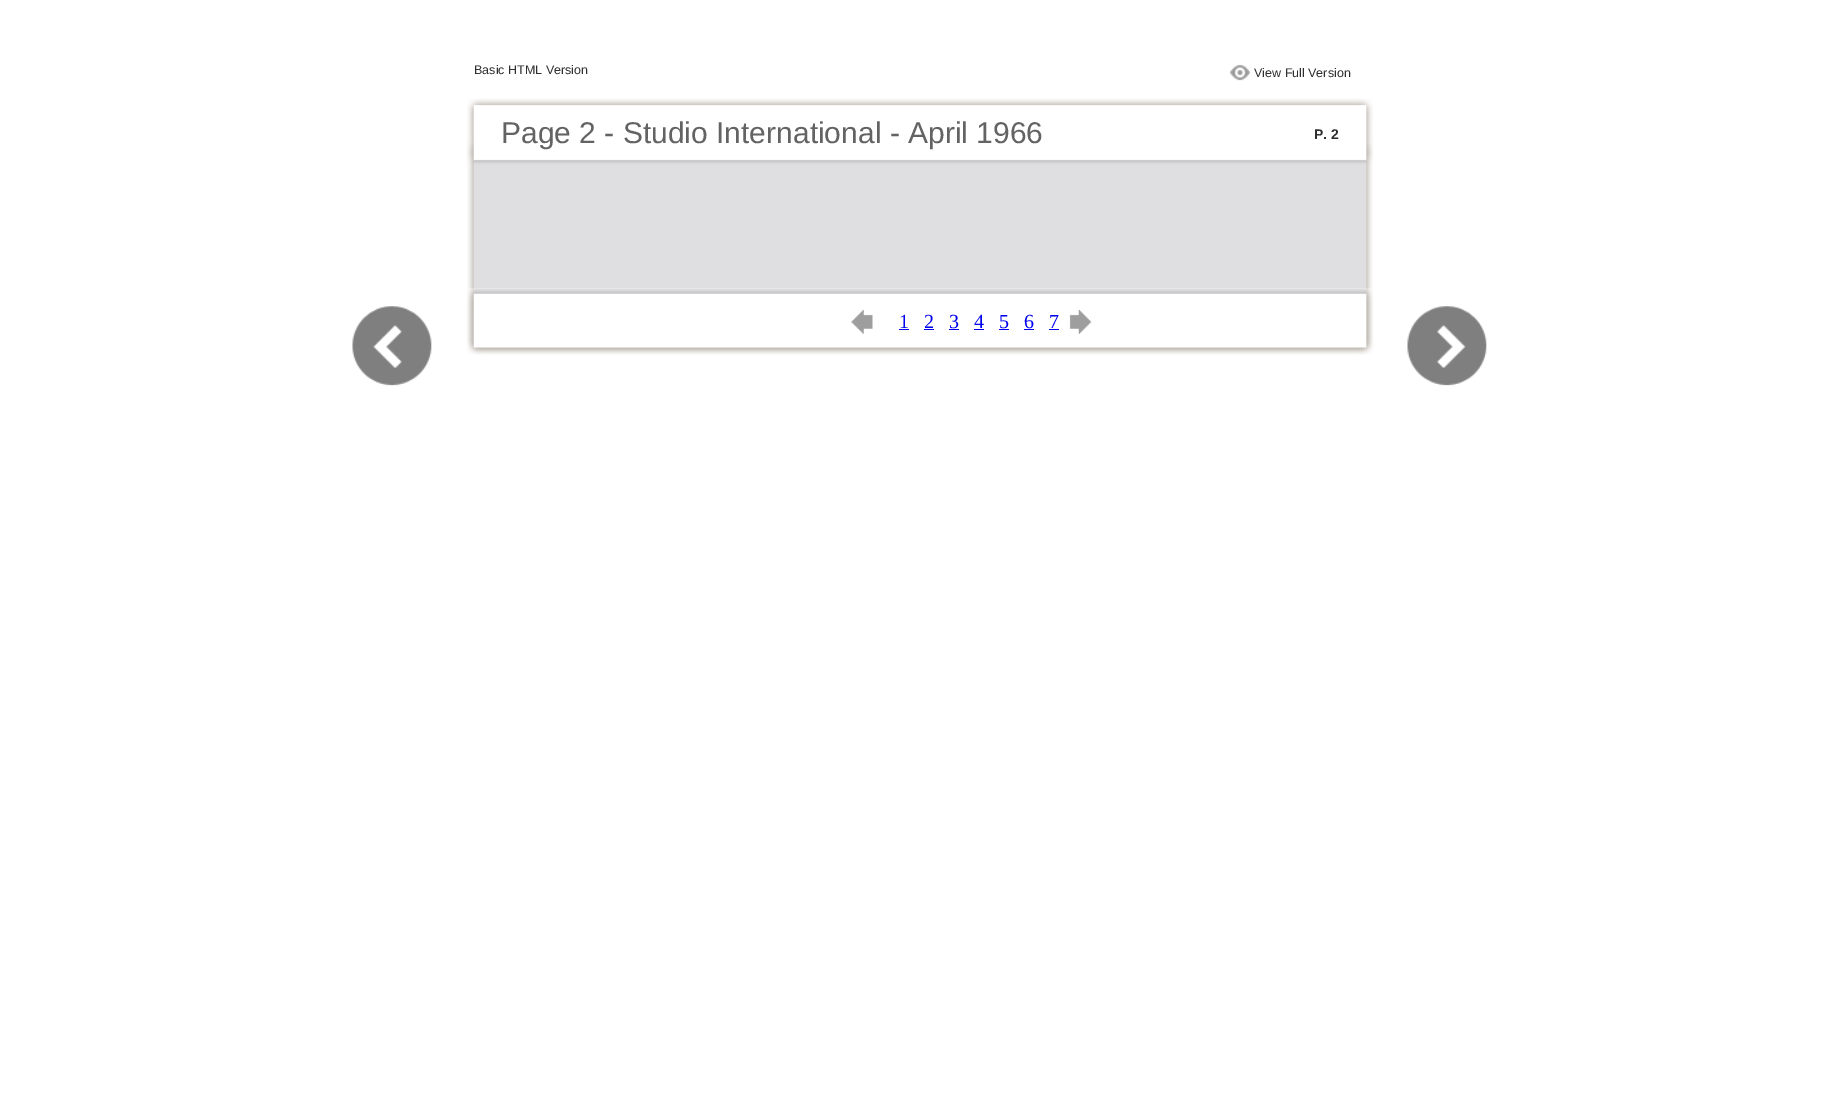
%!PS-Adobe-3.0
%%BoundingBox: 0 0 1840 1098
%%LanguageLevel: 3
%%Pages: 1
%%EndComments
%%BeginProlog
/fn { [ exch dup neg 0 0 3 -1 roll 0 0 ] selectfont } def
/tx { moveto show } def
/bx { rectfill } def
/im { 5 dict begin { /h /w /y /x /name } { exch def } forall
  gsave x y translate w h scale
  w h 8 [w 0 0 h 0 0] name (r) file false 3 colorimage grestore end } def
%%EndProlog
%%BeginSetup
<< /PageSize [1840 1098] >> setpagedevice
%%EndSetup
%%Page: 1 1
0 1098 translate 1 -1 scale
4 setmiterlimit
1 setgray
0 0 1840 1098 bx
/LiberationSans-Regular 12.5 fn
0.184 setgray
(Basic HTML Version) 474 74 tx
(image0.raw) 1230 64 21 17 im
(View Full Version) 1254 77 tx
(image1.raw) 466 98 908 67 im
/LiberationSans-Regular 30 fn
0.388 setgray
(Page 2 - Studio International - April 1966) 501 143 tx
/LiberationSans-Bold 14 fn
0.184 setgray
(P. 2) 1314 139 tx
(image2.raw) 467 165 906 124 im
(image3.raw) 466 289 908 66 im
(image4.raw) 851 310 22 24 im
/LiberationSerif-Regular 20 fn
0 0 0.933 setrgbcolor
(1) 899 328 tx
899 329 10 1 bx
(2) 924 328 tx
924 329 10 1 bx
(3) 949 328 tx
949 329 10 1 bx
(4) 974 328 tx
974 329 10 1 bx
(5) 999 328 tx
999 329 10 1 bx
(6) 1024 328 tx
1024 329 10 1 bx
(7) 1049 328 tx
1049 329 10 1 bx
(image5.raw) 1069 310 23 24 im
(image6.raw) 352 306 80 80 im
(image7.raw) 1407 306 80 80 im
showpage
%%EOF
